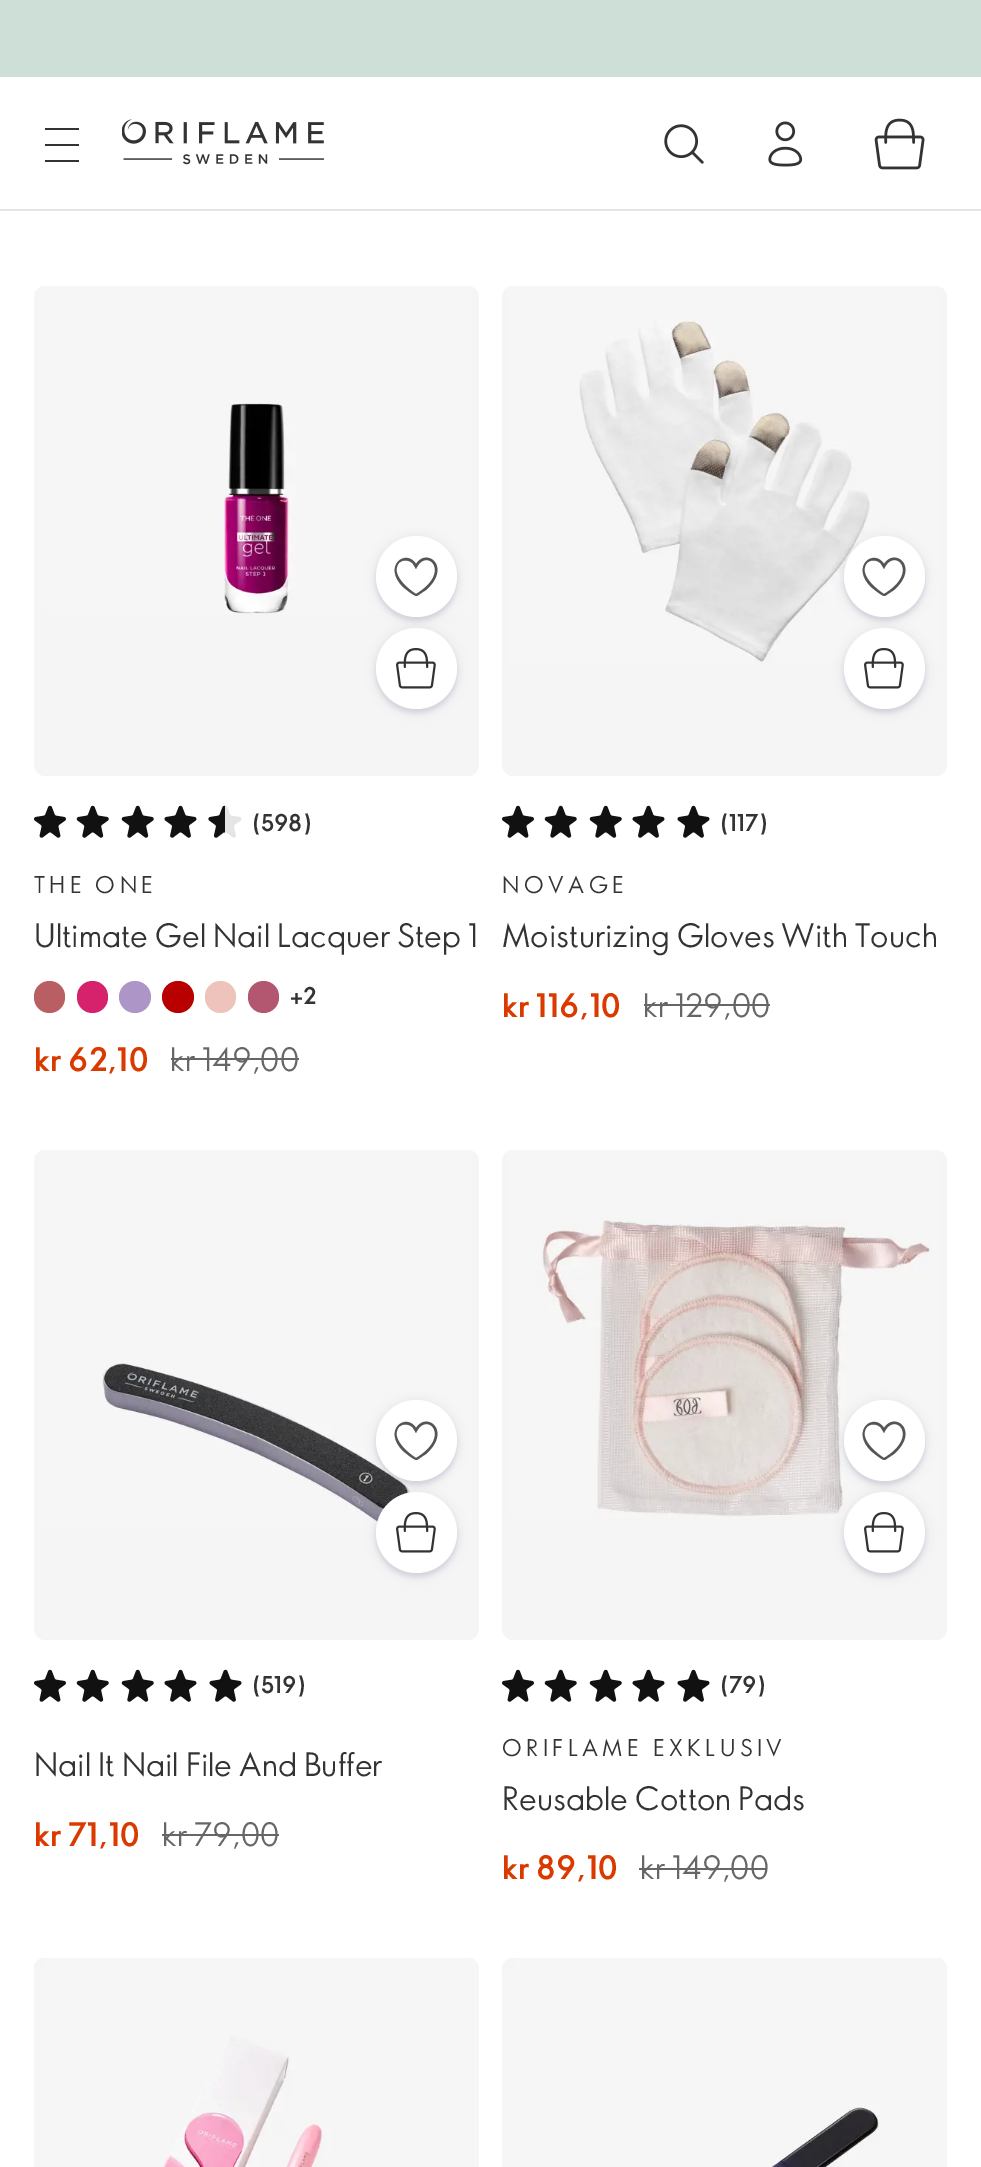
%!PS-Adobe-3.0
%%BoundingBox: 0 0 981 2167
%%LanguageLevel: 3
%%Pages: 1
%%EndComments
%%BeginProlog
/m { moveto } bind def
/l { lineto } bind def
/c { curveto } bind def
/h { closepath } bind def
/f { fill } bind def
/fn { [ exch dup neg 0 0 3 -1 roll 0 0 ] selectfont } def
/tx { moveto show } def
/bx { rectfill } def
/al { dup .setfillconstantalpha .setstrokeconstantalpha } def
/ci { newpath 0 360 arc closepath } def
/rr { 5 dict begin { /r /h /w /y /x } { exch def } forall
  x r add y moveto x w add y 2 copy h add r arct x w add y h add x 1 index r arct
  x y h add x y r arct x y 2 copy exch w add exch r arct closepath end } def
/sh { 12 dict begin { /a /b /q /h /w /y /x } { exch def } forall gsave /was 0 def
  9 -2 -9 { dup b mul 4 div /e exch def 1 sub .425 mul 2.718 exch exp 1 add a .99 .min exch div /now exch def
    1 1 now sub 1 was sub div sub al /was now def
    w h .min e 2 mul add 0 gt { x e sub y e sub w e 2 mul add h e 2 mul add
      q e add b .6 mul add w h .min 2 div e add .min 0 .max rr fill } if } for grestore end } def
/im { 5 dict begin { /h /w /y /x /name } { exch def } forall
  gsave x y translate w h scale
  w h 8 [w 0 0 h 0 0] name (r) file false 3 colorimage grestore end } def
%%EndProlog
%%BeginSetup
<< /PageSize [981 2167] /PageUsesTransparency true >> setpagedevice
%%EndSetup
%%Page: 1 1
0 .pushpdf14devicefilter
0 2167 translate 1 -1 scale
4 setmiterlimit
1 setgray
0 0 981 2167 bx
0.898 setgray
0 209 981 2 bx
0.808 0.875 0.843 setrgbcolor
0 0 981 77 bx
0.2 setgray
45 128 34 2 bx
45 144 34 2 bx
45 160 34 2 bx
(image0.raw) 122 119 202 46 im
(image1.raw) 664 124 40 40 im
(image2.raw) 768 121 35 46 im
(image3.raw) 874 118 51 52 im
0.961 setgray
45 286 m 468 286 l 474 286 479 291 479 297 c 479 731 l 34 731 l 34 297 l 34 291 39 286 45 286 c h f
(image4.raw) 41 286 431 328 im
0 0 0.259 setrgbcolor
376 630 81 81 40.5 5.5 0.08 sh
376 632 81 81 40.5 2 0.08 sh
1 setgray
416.5 668.5 40.5 ci f
0 0 0.259 setrgbcolor
376 538 81 81 40.5 5.5 0.08 sh
376 540 81 81 40.5 2 0.08 sh
1 setgray
416.5 576.5 40.5 ci f
0.333 setgray
416 595 m 416 596 l 411 594 407 590 403 587 c 382 566 406 548 416 564 c 427 547 452 567 426 590 c 417 596 l 416 595 l 399 563 m 390 574 408 589 416 594 c 453 572 426 546 416 569 c 413 564 l 410 560 403 559 399 563 c 416 595 m 417 596 l 416 596 l h f
(image5.raw) 396 648 40 41 im
0.961 setgray
34 731 m 479 731 l 479 765 l 479 771 474 776 468 776 c 45 776 l 39 776 34 771 34 765 c h f
(image6.raw) 34 805 32 33 im
(image7.raw) 76 805 33 33 im
(image7.raw) 121 805 33 33 im
(image8.raw) 164 805 33 33 im
(image10.raw) 209 805 33 33 im
(image9.raw) 208 805 17 33 im
/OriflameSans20-Bold 22.5 fn
0.2 setgray
(\(598\)) 252 831 tx
/OriflameSans20-Regular 22.5 fn
34 893 m 4.5 0 (THE ONE) ashow
/OriflameSans20-Regular 31.5 fn
(Ultimate Gel Nail Lacquer Step 1) 34 947 tx
0.725 0.369 0.388 setrgbcolor
34 981 31 32 15.5 rr f
0.839 0.133 0.424 setrgbcolor
77 981 31 32 15.5 rr f
0.678 0.588 0.78 setrgbcolor
135 997 16 ci f
0.722 0 0.004 setrgbcolor
178 997 16 ci f
0.929 0.765 0.733 setrgbcolor
205 981 31 32 15.5 rr f
0.702 0.337 0.439 setrgbcolor
248 981 31 32 15.5 rr f
/OriflameSans20-Bold 22.5 fn
0.2 setgray
(+2) 290 1004 tx
/OriflameSans20-Bold 31.5 fn
0.855 0.227 0 setrgbcolor
(kr 62,10) 34 1071 tx
/OriflameSans20-Regular 31.5 fn
0.4 setgray
(kr 149,00) 170 1071 tx
171 1058 128 2 bx
0.961 setgray
513 286 m 936 286 l 942 286 947 291 947 297 c 947 731 l 502 731 l 502 297 l 502 291 507 286 513 286 c h f
(image11.raw) 507 286 433 377 im
0 0 0.259 setrgbcolor
844 630 81 81 40.5 5.5 0.08 sh
844 632 81 81 40.5 2 0.08 sh
1 setgray
884.5 668.5 40.5 ci f
0 0 0.259 setrgbcolor
844 538 81 81 40.5 5.5 0.08 sh
844 540 81 81 40.5 2 0.08 sh
1 setgray
884.5 576.5 40.5 ci f
0.333 setgray
884 595 m 884 596 l 879 594 875 590 871 587 c 850 566 874 548 884 564 c 895 547 920 567 894 590 c 885 596 l 884 595 l 867 563 m 858 574 876 589 884 594 c 921 572 894 546 884 569 c 881 564 l 878 560 871 559 867 563 c 884 595 m 885 596 l 884 596 l h f
(image5.raw) 864 648 40 41 im
0.961 setgray
502 731 m 947 731 l 947 765 l 947 771 942 776 936 776 c 513 776 l 507 776 502 771 502 765 c h f
(image6.raw) 502 805 32 33 im
(image7.raw) 544 805 33 33 im
(image7.raw) 589 805 33 33 im
(image8.raw) 632 805 33 33 im
(image8.raw) 677 805 33 33 im
/OriflameSans20-Bold 22.5 fn
0.2 setgray
(\(117\)) 720 831 tx
/OriflameSans20-Regular 22.5 fn
502 893 m 4.5 0 (NOVAGE) ashow
/OriflameSans20-Regular 31.5 fn
(Moisturizing Gloves With Touch) 502 947 tx
/OriflameSans20-Bold 31.5 fn
0.855 0.227 0 setrgbcolor
(kr 116,10) 502 1017 tx
/OriflameSans20-Regular 31.5 fn
0.4 setgray
(kr 129,00) 643 1017 tx
644 1004 126 2 bx
0.961 setgray
45 1150 m 468 1150 l 474 1150 479 1155 479 1161 c 479 1595 l 34 1595 l 34 1161 l 34 1155 39 1150 45 1150 c h f
(image12.raw) 41 1150 431 377 im
0 0 0.259 setrgbcolor
376 1494 81 81 40.5 5.5 0.08 sh
376 1496 81 81 40.5 2 0.08 sh
1 setgray
416.5 1532.5 40.5 ci f
0 0 0.259 setrgbcolor
376 1402 81 81 40.5 5.5 0.08 sh
376 1404 81 81 40.5 2 0.08 sh
1 setgray
416.5 1440.5 40.5 ci f
0.333 setgray
416 1459 m 416 1460 l 411 1458 407 1454 403 1451 c 382 1430 406 1412 416 1428 c 427 1411 452 1431 426 1454 c 417 1460 l 416 1459 l 399 1427 m 390 1438 408 1453 416 1458 c 453 1436 426 1410 416 1433 c 413 1428 l 410 1424 403 1423 399 1427 c 416 1459 m 417 1460 l 416 1460 l h f
(image5.raw) 396 1512 40 41 im
0.961 setgray
34 1595 m 479 1595 l 479 1629 l 479 1635 474 1640 468 1640 c 45 1640 l 39 1640 34 1635 34 1629 c h f
(image6.raw) 34 1669 32 33 im
(image7.raw) 76 1669 33 33 im
(image7.raw) 121 1669 33 33 im
(image8.raw) 164 1669 33 33 im
(image8.raw) 209 1669 33 33 im
/OriflameSans20-Bold 22.5 fn
0.2 setgray
(\(519\)) 252 1693 tx
/OriflameSans20-Regular 31.5 fn
(Nail It Nail File And Buffer) 34 1776 tx
/OriflameSans20-Bold 31.5 fn
0.855 0.227 0 setrgbcolor
(kr 71,10) 34 1846 tx
/OriflameSans20-Regular 31.5 fn
0.4 setgray
(kr 79,00) 162 1846 tx
162 1834 117 2 bx
0.961 setgray
513 1150 m 936 1150 l 942 1150 947 1155 947 1161 c 947 1595 l 502 1595 l 502 1161 l 502 1155 507 1150 513 1150 c h f
(image13.raw) 507 1150 433 368 im
0 0 0.259 setrgbcolor
844 1494 81 81 40.5 5.5 0.08 sh
844 1496 81 81 40.5 2 0.08 sh
1 setgray
884.5 1532.5 40.5 ci f
0 0 0.259 setrgbcolor
844 1402 81 81 40.5 5.5 0.08 sh
844 1404 81 81 40.5 2 0.08 sh
1 setgray
884.5 1440.5 40.5 ci f
0.333 setgray
884 1459 m 884 1460 l 879 1458 875 1454 871 1451 c 850 1430 874 1412 884 1428 c 895 1411 920 1431 894 1454 c 885 1460 l 884 1459 l 867 1427 m 858 1438 876 1453 884 1458 c 921 1436 894 1410 884 1433 c 881 1428 l 878 1424 871 1423 867 1427 c 884 1459 m 885 1460 l 884 1460 l h f
(image5.raw) 864 1512 40 41 im
0.961 setgray
502 1595 m 947 1595 l 947 1629 l 947 1635 942 1640 936 1640 c 513 1640 l 507 1640 502 1635 502 1629 c h f
(image6.raw) 502 1669 32 33 im
(image7.raw) 544 1669 33 33 im
(image7.raw) 589 1669 33 33 im
(image8.raw) 632 1669 33 33 im
(image8.raw) 677 1669 33 33 im
/OriflameSans20-Bold 22.5 fn
0.2 setgray
(\(79\)) 720 1693 tx
/OriflameSans20-Regular 22.5 fn
502 1756 m 4.5 0 (ORIFLAME EXKLUSIV) ashow
/OriflameSans20-Regular 31.5 fn
(Reusable Cotton Pads) 502 1810 tx
/OriflameSans20-Bold 31.5 fn
0.855 0.227 0 setrgbcolor
(kr 89,10) 502 1879 tx
/OriflameSans20-Regular 31.5 fn
0.4 setgray
(kr 149,00) 640 1879 tx
639 1868 128 2 bx
(image14.raw) 34 1958 445 209 im
(image15.raw) 502 1958 445 209 im
.poppdf14devicefilter showpage
%%EOF
